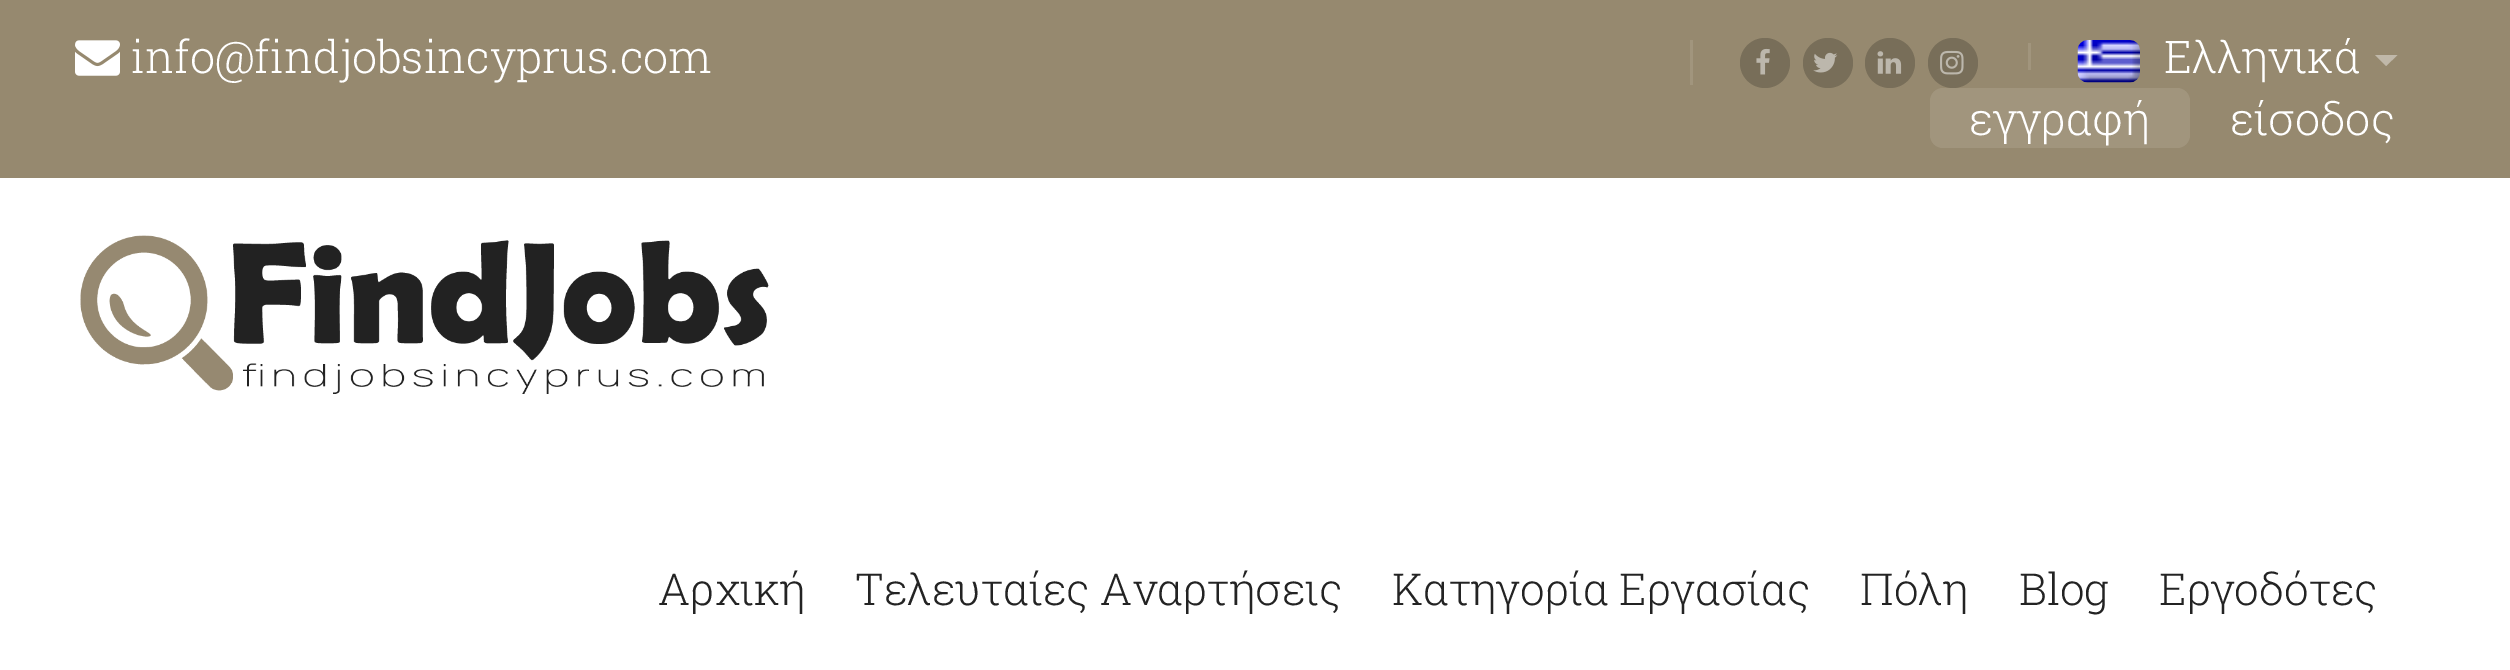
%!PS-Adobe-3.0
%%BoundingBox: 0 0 2510 670
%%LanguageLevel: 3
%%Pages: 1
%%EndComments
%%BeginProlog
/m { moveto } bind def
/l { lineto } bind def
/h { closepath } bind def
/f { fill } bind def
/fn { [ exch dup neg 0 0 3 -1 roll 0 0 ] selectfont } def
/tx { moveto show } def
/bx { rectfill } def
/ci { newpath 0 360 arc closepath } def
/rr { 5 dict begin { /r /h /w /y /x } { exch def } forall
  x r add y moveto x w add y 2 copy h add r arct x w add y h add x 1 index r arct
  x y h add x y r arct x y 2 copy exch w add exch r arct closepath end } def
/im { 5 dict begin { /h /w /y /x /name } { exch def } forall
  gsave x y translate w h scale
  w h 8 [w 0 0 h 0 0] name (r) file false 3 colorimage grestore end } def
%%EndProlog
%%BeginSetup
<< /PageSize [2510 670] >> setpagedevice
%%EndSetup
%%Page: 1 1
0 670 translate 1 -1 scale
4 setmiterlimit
1 setgray
0 0 2510 670 bx
0.588 0.537 0.435 setrgbcolor
0 0 2510 178 bx
(image0.raw) 75 40 45 36 im
/RobotoSlab-Light 45 fn
1 setgray
(info@findjobsincyprus.com) 131 73 tx
0.631 0.584 0.49 setrgbcolor
1690 40 3 45 bx
0.471 0.431 0.349 setrgbcolor
1765 63 25 ci f
(image1.raw) 1756 48 14 27 im
1828 63 25 ci f
(image2.raw) 1813 52 25 21 im
1890 63 25 ci f
(image3.raw) 1877 51 25 23 im
1953 63 25 ci f
(image4.raw) 1940 50 24 25 im
0.631 0.584 0.49 setrgbcolor
2028 43 3 27 bx
(image5.raw) 2077 40 63 43 im
1 setgray
(Ελληνικά) 2164 73 tx
0.753 0.722 0.663 setrgbcolor
2375 55 m 2397.5 55 l 2386 66 l h f
0.631 0.584 0.49 setrgbcolor
1930 88 260 60 13 rr f
1 setgray
(εγγραφή) 1969 135 tx
(είσοδος) 2230 135 tx
(image6.raw) 80 235 689 159 im
/RobotoSlab-Light 44.1 fn
0.137 setgray
(Αρχική) 658 605 tx
(Τελευταίες Αναρτήσεις) 855 605 tx
(Κατηγορία Εργασίας) 1392 605 tx
(Πόλη) 1860 605 tx
(Blog) 2019 605 tx
(Εργοδότες) 2159 605 tx
showpage
%%EOF
